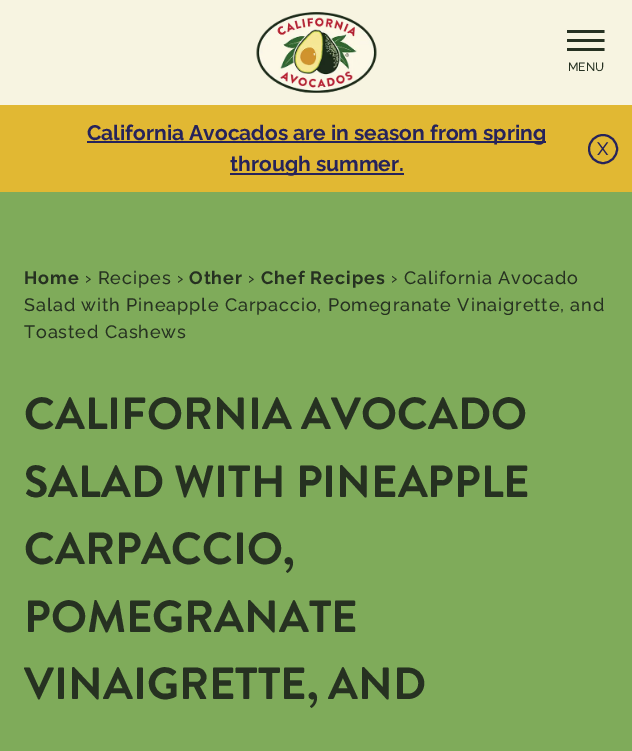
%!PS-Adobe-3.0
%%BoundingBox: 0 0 632 751
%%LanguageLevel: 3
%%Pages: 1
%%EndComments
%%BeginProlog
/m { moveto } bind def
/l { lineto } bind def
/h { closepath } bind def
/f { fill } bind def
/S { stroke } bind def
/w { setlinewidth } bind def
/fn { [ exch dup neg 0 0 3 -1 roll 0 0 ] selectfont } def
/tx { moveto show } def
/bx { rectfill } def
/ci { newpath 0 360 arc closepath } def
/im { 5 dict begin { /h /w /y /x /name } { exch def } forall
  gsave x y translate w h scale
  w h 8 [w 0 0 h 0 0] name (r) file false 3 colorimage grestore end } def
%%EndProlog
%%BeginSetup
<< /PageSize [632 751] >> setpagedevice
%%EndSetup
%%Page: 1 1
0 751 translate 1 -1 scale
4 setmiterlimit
0.498 0.671 0.353 setrgbcolor
0 0 632 751 bx
0.969 0.957 0.882 setrgbcolor
0 0 632 105 bx
(image0.raw) 256 12 121 81 im
0.149 0.192 0.129 setrgbcolor
567 30 m 604.5 30 l 604.5 33 l 567 33 l h 567 39 m 604.5 39 l 604.5 42 l 567 42 l h 567 48 m 604.5 48 l 604.5 51 l 567 51 l h f
/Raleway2-Thin 12 fn
(MENU) 568 71 tx
0.882 0.722 0.2 setrgbcolor
0 105 632 87 bx
0.149 0.137 0.357 setrgbcolor
87 141 459 2 bx
/Raleway-Thin 21 fn
(California Avocados are in season from spring) 87 140 tx
230 173 174 2 bx
(through summer.) 230 171 tx
2 w
603 149 14 ci S
/Raleway2-Thin 18 fn
(X) 597 155 tx
/Raleway-Thin 18 fn
0.149 0.192 0.129 setrgbcolor
24 284 m 0.9 0 (Home) ashow
/Raleway2-Thin 18 fn
85 284 m 0.9 0 (› Recipes ›) ashow
/Raleway-Thin 18 fn
189 284 m 0.9 0 (Other) ashow
/Raleway2-Thin 18 fn
248 284 m 0.9 0 (›) ashow
/Raleway-Thin 18 fn
261 284 m 0.9 0 (Chef Recipes) ashow
/Raleway2-Thin 18 fn
391 284 m 0.9 0 (› California Avocado) ashow
24 311 m 0.9 0 (Salad with Pineapple Carpaccio, Pomegranate Vinaigrette, and) ashow
24 338 m 0.9 0 (Toasted Cashews) ashow
/BrandonGrotesque-Bold 45 fn
(CALIFORNIA AVOCADO) 24 429 tx
(SALAD WITH PINEAPPLE) 24 497 tx
(CARPACCIO,) 24 564 tx
(POMEGRANATE) 24 632 tx
(VINAIGRETTE, AND) 24 699 tx
showpage
%%EOF
